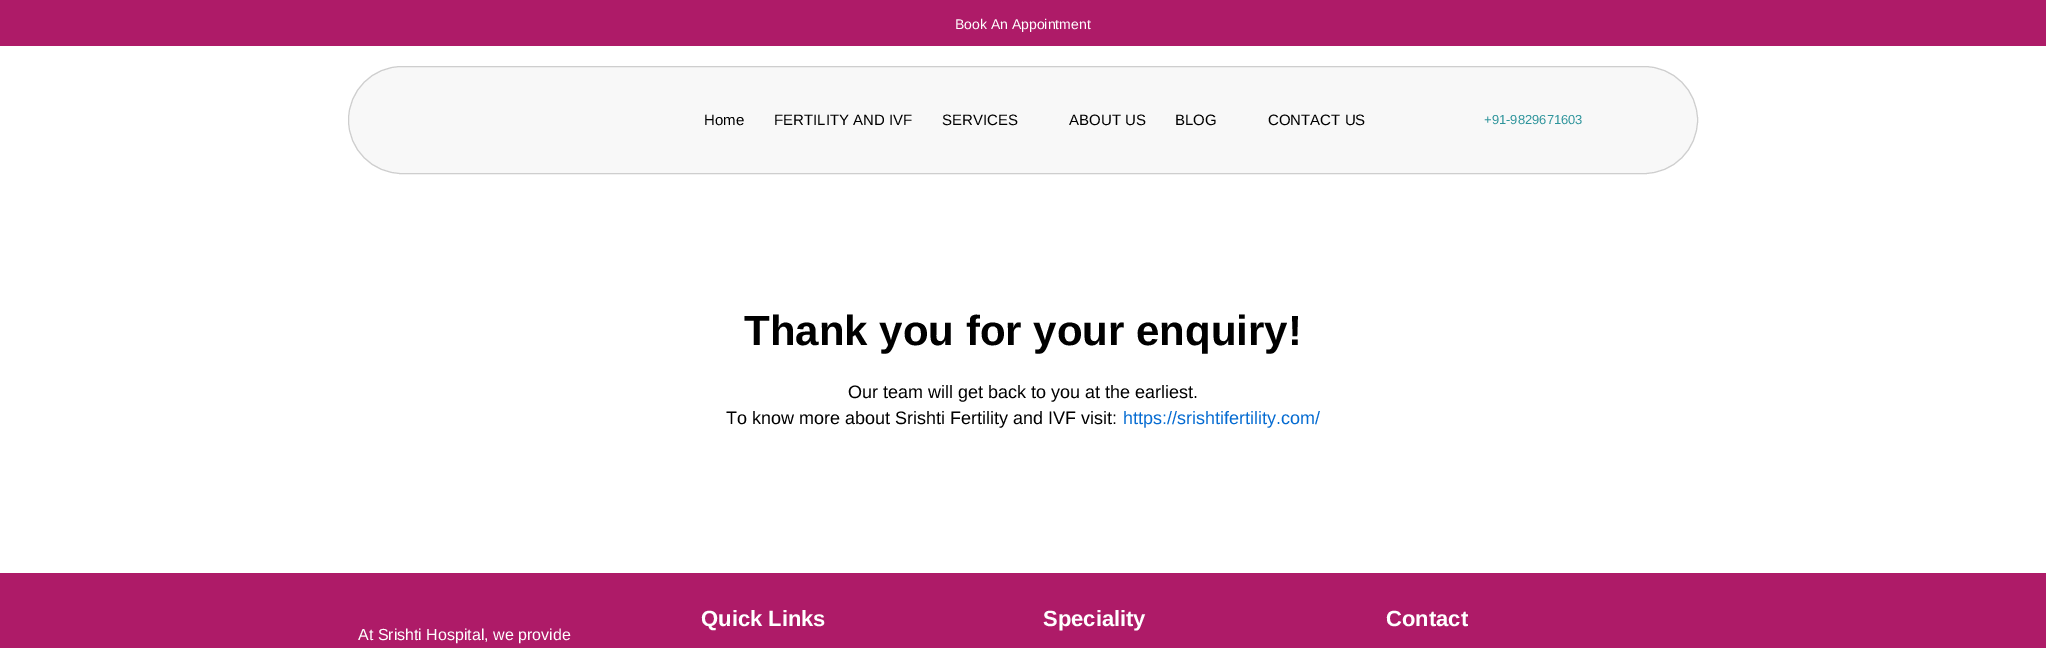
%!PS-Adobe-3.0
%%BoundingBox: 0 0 2046 648
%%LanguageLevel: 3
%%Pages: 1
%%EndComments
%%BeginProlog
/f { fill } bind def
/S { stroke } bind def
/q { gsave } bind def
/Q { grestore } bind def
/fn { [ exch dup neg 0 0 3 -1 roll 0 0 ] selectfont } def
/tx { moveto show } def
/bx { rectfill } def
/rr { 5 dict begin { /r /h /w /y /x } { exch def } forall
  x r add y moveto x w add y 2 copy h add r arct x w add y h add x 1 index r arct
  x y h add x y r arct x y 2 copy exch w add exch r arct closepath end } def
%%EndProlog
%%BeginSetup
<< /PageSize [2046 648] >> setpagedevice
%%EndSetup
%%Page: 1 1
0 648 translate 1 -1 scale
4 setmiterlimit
1 setgray
0 0 2046 648 bx
0.682 0.106 0.408 setrgbcolor
0 0 2046 46 bx
/LiberationSans-Regular 14 fn
1 setgray
(Book An Appointment) 955 29 tx
0.973 setgray
348.5 66.5 1349 107 53.5 rr q f Q
0.808 setgray
S
/LiberationSans-Regular 15 fn
0 setgray
(Home) 704 125 tx
(FERTILITY AND IVF) 774 125 tx
(SERVICES) 942 125 tx
(ABOUT US) 1069 125 tx
(BLOG) 1175 125 tx
(CONTACT US) 1268 125 tx
/LiberationSans-Regular 13 fn
0.176 0.58 0.608 setrgbcolor
(+91-9829671603) 1484 124 tx
/LiberationSans-Bold 42 fn
0 setgray
(Thank you for your enquiry!) 744 345 tx
/LiberationSans-Regular 18 fn
(Our team will get back to you at the earliest.) 848 398 tx
(To know more about Srishti Fertility and IVF visit:) 726 424 tx
0.016 0.42 0.824 setrgbcolor
(https://srishtifertility.com/) 1123 424 tx
0.682 0.106 0.408 setrgbcolor
0 573 2046 75 bx
/LiberationSans-Bold 22 fn
1 setgray
(Quick Links) 701 626 tx
(Speciality) 1043 626 tx
(Contact) 1386 626 tx
/LiberationSans-Regular 16 fn
(At Srishti Hospital, we provide) 358 640 tx
showpage
%%EOF
